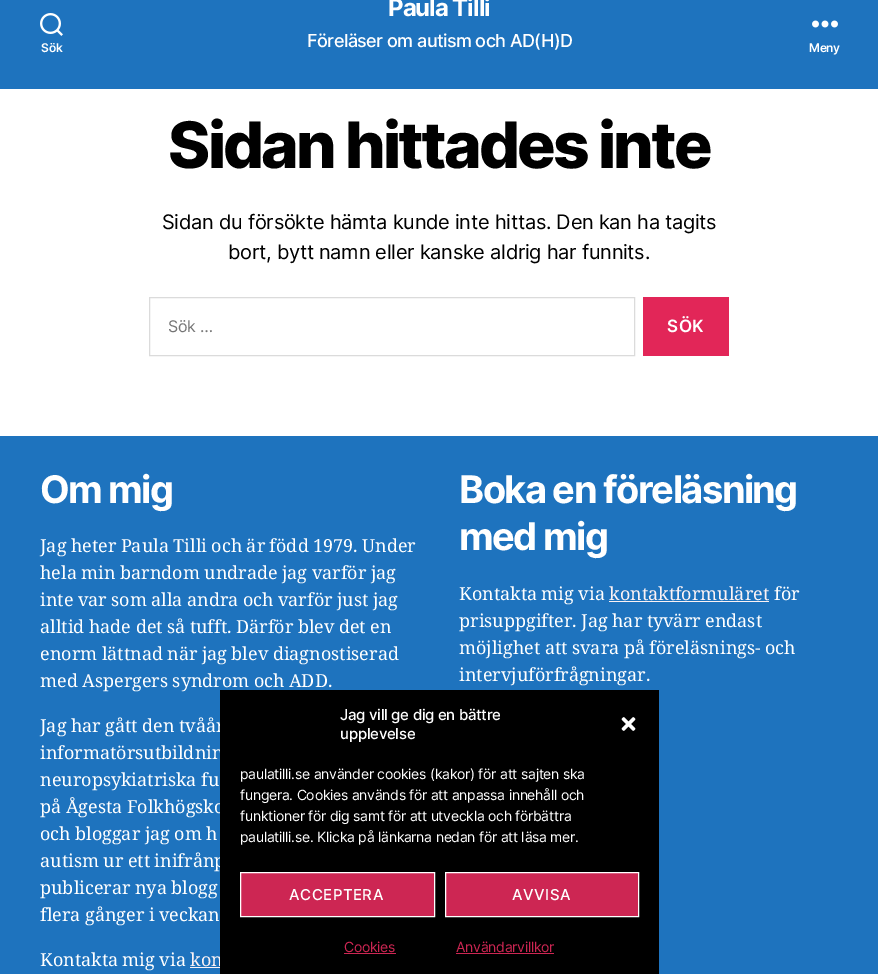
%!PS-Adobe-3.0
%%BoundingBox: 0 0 878 974
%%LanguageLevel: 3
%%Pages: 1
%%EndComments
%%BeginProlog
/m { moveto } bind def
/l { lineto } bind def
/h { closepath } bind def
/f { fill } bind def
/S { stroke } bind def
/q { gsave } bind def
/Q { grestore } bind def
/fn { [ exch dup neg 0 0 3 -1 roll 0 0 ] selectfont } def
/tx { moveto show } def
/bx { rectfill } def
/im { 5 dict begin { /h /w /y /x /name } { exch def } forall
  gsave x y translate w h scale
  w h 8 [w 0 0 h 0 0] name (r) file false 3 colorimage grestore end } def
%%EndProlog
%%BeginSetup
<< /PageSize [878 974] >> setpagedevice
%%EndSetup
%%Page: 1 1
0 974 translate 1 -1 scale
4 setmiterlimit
1 setgray
0 0 878 974 bx
0.118 0.451 0.745 setrgbcolor
0 0 878 89 bx
(image0.raw) 40 13 23 23 im
/Inter-SemiBold 12 fn
1 setgray
41 52 m -0.27 0 (Sök) ashow
/Inter-Bold 24 fn
388 16 m -1 0 (Paula Tilli) ashow
/Inter-Medium 18 fn
307 47 m -0.55 0 (Föreläser om autism och AD\(H\)D) ashow
(image1.raw) 812 20 26 8 im
/Inter-SemiBold 12 fn
809 52 m -0.27 0 (Meny) ashow
/Inter-ExtraBold 64 fn
0 setgray
168 168 m -2.7 0 (Sidan hittades inte) ashow
/Inter-Regular 20 fn
162 229 m -0.27 0 (Sidan du försökte hämta kunde inte hittas. Den kan ha tagits) ashow
228 259 m -0.27 0 (bort, bytt namn eller kanske aldrig har funnits.) ashow
0.859 setgray
149.5 297.5 485 58 rectstroke
/Inter-Regular 16 fn
0.459 setgray
168 332 m -0.25 0 (Sök …) ashow
0.886 0.149 0.345 setrgbcolor
643 297 86 59 bx
/Inter-SemiBold 17 fn
1 setgray
667 332 m 0.5 0 (SÖK) ashow
0.118 0.451 0.745 setrgbcolor
0 436 878 538 bx
/Inter-Bold 38 fn
1 setgray
40 503 m -1.6 0 (Om mig) ashow
/NotoSerif-Regular 18 fn
40 552 m -0.25 0 32 (Jag heter Paula Tilli och är född 1979. Under) widthshow
40 579 m -0.25 0 32 (hela min barndom undrade jag varför jag) widthshow
40 606 m -0.25 0 32 (inte var som alla andra och varför just jag) widthshow
40 633 m -0.25 0 32 (alltid hade det så tufft. Därför blev det en) widthshow
40 660 m -0.25 0 32 (enorm lättnad när jag blev diagnostiserad) widthshow
40 687 m -0.25 0 32 (med Aspergers syndrom och ADD.) widthshow
40 732 m -0.25 0 32 (Jag har gått den tvåår) widthshow
40 759 m -0.25 0 32 (informatörsutbildnin) widthshow
40 786 m -0.25 0 32 (neuropsykiatriska fu) widthshow
40 813 m -0.25 0 32 (på Ågesta Folkhögsko) widthshow
40 840 m -0.25 0 32 (och bloggar jag om h) widthshow
40 867 m -0.25 0 32 (autism ur ett inifrånp) widthshow
40 894 m -0.25 0 32 (publicerar nya blogg) widthshow
40 921 m -0.25 0 32 (flera gånger i veckan) widthshow
40 966 m -0.25 0 32 (Kontakta mig via) widthshow
0.988 0.949 0.957 setrgbcolor
(kon) 190 966 tx
190 967 30 1 bx
/Inter-Bold 38 fn
1 setgray
459 503 m -1.6 0 (Boka en föreläsning) ashow
459 550 m -1.6 0 (med mig) ashow
/NotoSerif-Regular 18 fn
459 600 m -0.25 0 32 (Kontakta mig via) widthshow
0.988 0.949 0.957 setrgbcolor
(kontaktformuläret) 609 600 tx
609 601 160 1 bx
1 setgray
(för) 774 600 tx
459 627 m -0.25 0 32 (prisuppgifter. Jag har tyvärr endast) widthshow
459 654 m -0.25 0 32 (möjlighet att svara på föreläsnings- och) widthshow
(intervjuförfrågningar.) 459 681 tx
0 setgray
220 690 439 284 bx
/Inter-Medium 15 fn
1 setgray
340 720 m -0.27 0 (Jag vill ge dig en bättre) ashow
340 739 m -0.27 0 (upplevelse) ashow
(image2.raw) 621 717 15 14 im
/Inter-Regular 14 fn
240 779 m -0.27 0 (paulatilli.se använder cookies \(kakor\) för att sajten ska) ashow
240 800 m -0.27 0 (fungera. Cookies används för att anpassa innehåll och) ashow
240 821 m -0.27 0 (funktioner för dig samt för att utveckla och förbättra) ashow
240 842 m -0.27 0 (paulatilli.se. Klicka på länkarna nedan för att läsa mer.) ashow
0.804 0.149 0.325 setrgbcolor
240.5 872.5 m 434.5 872.5 l 434.5 916.5 l 240.5 916.5 l h q f Q
1 setgray
S
/Inter-Medium 15 fn
289 900 m 0.5 0 (ACCEPTERA) ashow
0.804 0.149 0.325 setrgbcolor
445.5 872.5 m 638.5 872.5 l 638.5 916.5 l 445.5 916.5 l h q f Q
1 setgray
S
512 900 m 0.5 0 (AVVISA) ashow
/Inter-Regular 14 fn
0.804 0.149 0.325 setrgbcolor
344 952 m -0.27 0 (Cookies) ashow
344 953 52 1 bx
456 952 m -0.27 0 (Användarvillkor) ashow
456 953 98 1 bx
showpage
%%EOF
